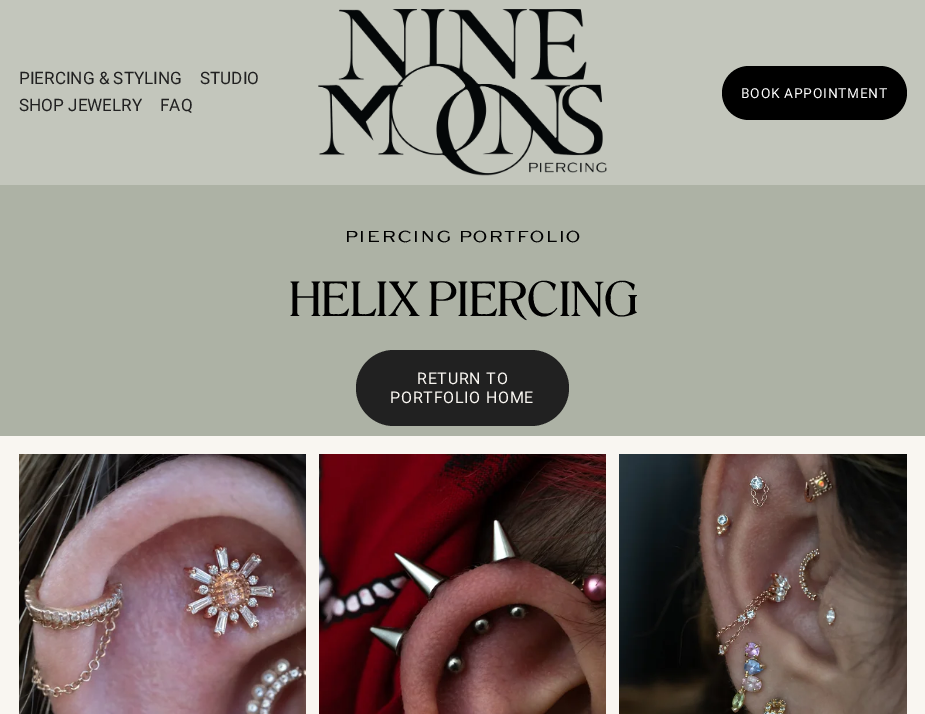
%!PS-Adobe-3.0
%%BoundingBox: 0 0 925 714
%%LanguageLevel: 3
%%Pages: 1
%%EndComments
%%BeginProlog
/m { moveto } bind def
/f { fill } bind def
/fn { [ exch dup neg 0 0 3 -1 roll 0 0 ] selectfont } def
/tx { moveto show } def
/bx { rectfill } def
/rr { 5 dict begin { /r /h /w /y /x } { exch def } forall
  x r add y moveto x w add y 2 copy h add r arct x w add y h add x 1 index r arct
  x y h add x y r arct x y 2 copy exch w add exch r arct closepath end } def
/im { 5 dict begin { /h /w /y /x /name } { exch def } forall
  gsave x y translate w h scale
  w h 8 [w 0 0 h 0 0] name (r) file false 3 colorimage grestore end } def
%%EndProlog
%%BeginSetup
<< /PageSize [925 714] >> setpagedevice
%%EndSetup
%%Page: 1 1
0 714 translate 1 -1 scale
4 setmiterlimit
0.678 0.698 0.647 setrgbcolor
0 0 925 714 bx
0.765 0.776 0.737 setrgbcolor
0 0 925 185 bx
/Roboto-Regular 17.1 fn
0.129 setgray
(PIERCING & STYLING) 19 84 tx
(STUDIO) 200 84 tx
(SHOP JEWELRY) 19 111 tx
(FAQ) 160 111 tx
(image0.raw) 318 9 289 167 im
0 setgray
722 66 185 54 27 rr f
/Roboto-Regular 13.75 fn
1 setgray
741 98 m 0.75 0 (BOOK APPOINTMENT) ashow
/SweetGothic-Regular 17.1 fn
0 setgray
344 242 m 0.2 0 (PIERCING PORTFOLIO) ashow
/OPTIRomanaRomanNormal-Regular 49.25 fn
(HELIX PIERCING) 288 316 tx
0.129 setgray
356 350 213 76 38 rr f
/Roboto-Regular 16 fn
0.976 0.965 0.945 setrgbcolor
417 384 m 0.75 0 (RETURN TO) ashow
390 403 m 0.75 0 (PORTFOLIO HOME) ashow
0 436 925 278 bx
(image1.raw) 19 454 287 260 im
(image2.raw) 319 454 287 260 im
(image3.raw) 619 454 288 260 im
showpage
%%EOF
